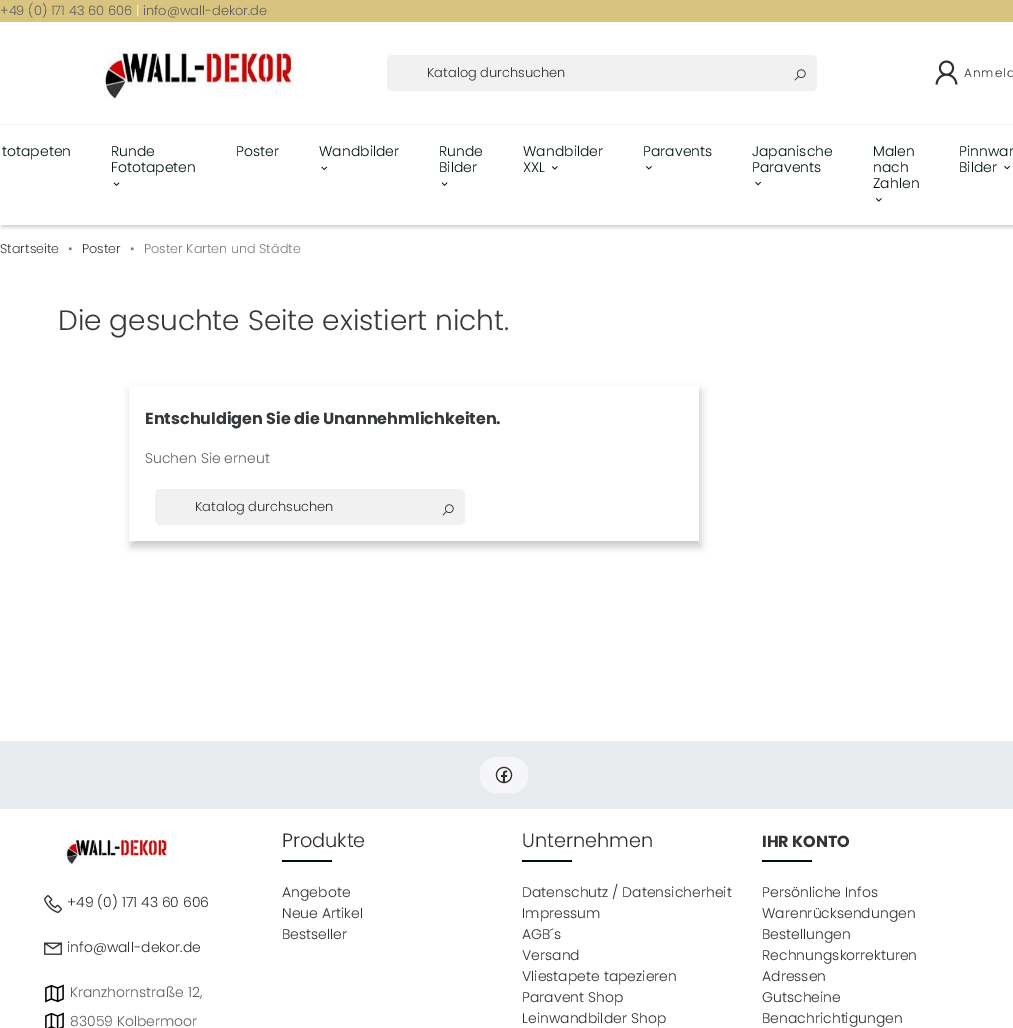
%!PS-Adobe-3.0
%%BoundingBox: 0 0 1013 1028
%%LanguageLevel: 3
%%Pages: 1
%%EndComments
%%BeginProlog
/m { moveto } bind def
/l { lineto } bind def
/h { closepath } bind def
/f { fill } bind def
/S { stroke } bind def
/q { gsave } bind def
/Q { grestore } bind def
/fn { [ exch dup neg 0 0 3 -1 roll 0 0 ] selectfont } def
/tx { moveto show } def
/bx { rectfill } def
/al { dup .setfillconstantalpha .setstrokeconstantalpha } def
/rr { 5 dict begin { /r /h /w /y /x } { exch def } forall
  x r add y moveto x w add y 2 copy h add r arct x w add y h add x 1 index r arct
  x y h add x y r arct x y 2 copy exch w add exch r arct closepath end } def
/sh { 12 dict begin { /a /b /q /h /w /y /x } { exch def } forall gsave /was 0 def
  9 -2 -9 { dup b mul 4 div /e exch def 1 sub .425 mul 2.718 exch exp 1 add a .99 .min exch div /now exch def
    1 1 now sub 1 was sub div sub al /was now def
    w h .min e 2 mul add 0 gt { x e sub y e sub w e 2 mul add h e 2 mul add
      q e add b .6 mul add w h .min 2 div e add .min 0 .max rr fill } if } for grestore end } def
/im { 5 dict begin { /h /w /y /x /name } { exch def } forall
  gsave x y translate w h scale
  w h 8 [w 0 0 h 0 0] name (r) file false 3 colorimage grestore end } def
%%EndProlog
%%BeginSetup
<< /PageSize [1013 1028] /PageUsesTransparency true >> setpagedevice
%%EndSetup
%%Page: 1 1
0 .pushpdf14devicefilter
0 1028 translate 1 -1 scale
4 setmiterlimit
1 setgray
0 0 1013 1028 bx
q
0 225 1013 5 rectclip
0 setgray
2 2 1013 225 0 2 0.2 sh
Q
0.847 0.769 0.498 setrgbcolor
0 0 1013 22 bx
/Poppins-Light 13 fn
0.369 setgray
(+49 \(0\) 171 43 60 606) 0 15 tx
0.965 0.965 0.973 setrgbcolor
(|) 136 15 tx
0.369 setgray
(info@wall-dekor.de) 143 15 tx
(image0.raw) 104 48 191 51 im
0.945 setgray
387 55 430 36 5 rr f
0.2 setgray
(Katalog durchsuchen) 427 77 tx
(image1.raw) 794 69 12 12 im
(image2.raw) 935 60 23 25 im
/Poppins-Light 12 fn
0.184 0.176 0.18 setrgbcolor
964 77 m 1 0 (Anmeld) ashow
0.965 0.965 0.973 setrgbcolor
0 124 1013 1 bx
/Poppins-Light 14 fn
0 0.063 0.067 setrgbcolor
(totapeten) 2 156 tx
(Runde) 111 156 tx
(Fototapeten) 111 172 tx
(image3.raw) 113 182 7 4 im
(Poster) 236 156 tx
(Wandbilder) 319 156 tx
(image4.raw) 321 166 7 5 im
(Runde) 439 156 tx
(Bilder) 439 172 tx
(image5.raw) 441 182 7 4 im
(Wandbilder) 523 156 tx
(XXL) 523 172 tx
(image6.raw) 551 166 7 4 im
(Paravents) 643 156 tx
(image7.raw) 646 166 6 4 im
(Japanische) 752 156 tx
(Paravents) 752 172 tx
(image8.raw) 755 181 6 5 im
(Malen) 873 156 tx
(nach) 873 172 tx
(Zahlen) 873 188 tx
(image9.raw) 875 198 7 4 im
(Pinnwan) 959 156 tx
(Bilder) 959 172 tx
(image10.raw) 1004 165 6 5 im
/Poppins-Light 12.75 fn
0.208 0.224 0.235 setrgbcolor
(Startseite) 0 253 tx
0.478 setgray
(•) 68 253 tx
0.208 0.224 0.235 setrgbcolor
(Poster) 82 253 tx
0.478 setgray
(•) 130 253 tx
(Poster Karten und Städte) 144 253 tx
/Poppins-Light 28 fn
0.208 0.224 0.235 setrgbcolor
(Die gesuchte Seite existiert nicht.) 58 330 tx
q
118 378 m 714 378 l 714 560 l 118 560 l h 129 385 m 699 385 l 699 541 l 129 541 l h eoclip newpath
0 setgray
131 391 570 156 0 4 0.2 sh
Q
/Poppins-Bold 16 fn
(Entschuldigen Sie die Unannehmlichkeiten.) 145 424 tx
/Poppins-Light 14 fn
0.369 setgray
(Suchen Sie erneut) 145 463 tx
0.945 setgray
155 489 310 36 5 rr f
/Poppins-Light 13 fn
0.2 setgray
(Katalog durchsuchen) 195 511 tx
(image1.raw) 442 504 12 12 im
0.914 0.925 0.937 setrgbcolor
0 741 1013 68 bx
0.965 0.965 0.973 setrgbcolor
480.5 757.5 47 35 15.5 rr q f Q
S
(image11.raw) 495 766 18 18 im
(image12.raw) 66 837 102 27 im
(image13.raw) 44 895 18 18 im
/Poppins-Light 14 fn
0.184 0.176 0.18 setrgbcolor
(+49 \(0\) 171 43 60 606) 67 907 tx
(image14.raw) 44 942 18 13 im
(info@wall-dekor.de) 67 952 tx
(image15.raw) 45 984 19 19 im
0.369 setgray
(Kranzhornstraße 12,) 70 997 tx
(image16.raw) 45 1012 19 16 im
(83059 Kolbermoor) 70 1026 tx
/Poppins-Light 19.25 fn
0.184 0.176 0.18 setrgbcolor
(Produkte) 282 847 tx
0 0.063 0.067 setrgbcolor
282 860 50 2 bx
/Poppins-Light 14 fn
0.184 0.176 0.18 setrgbcolor
(Angebote) 282 897 tx
(Neue Artikel) 282 918 tx
(Bestseller) 282 939 tx
/Poppins-Light 19.25 fn
(Unternehmen) 522 847 tx
0 0.063 0.067 setrgbcolor
522 860 50 2 bx
/Poppins-Light 14 fn
0.184 0.176 0.18 setrgbcolor
(Datenschutz / Datensicherheit) 522 897 tx
(Impressum) 522 918 tx
(AGB´s) 522 939 tx
(Versand) 522 960 tx
(Vliestapete tapezieren) 522 981 tx
(Paravent Shop) 522 1002 tx
(Leinwandbilder Shop) 522 1023 tx
/Poppins-Bold 16 fn
0.2 setgray
(IHR KONTO) 762 847 tx
0 0.063 0.067 setrgbcolor
762 860 50 2 bx
/Poppins-Light 14 fn
0.184 0.176 0.18 setrgbcolor
(Persönliche Infos) 762 897 tx
(Warenrücksendungen) 762 918 tx
(Bestellungen) 762 939 tx
(Rechnungskorrekturen) 762 960 tx
(Adressen) 762 981 tx
(Gutscheine) 762 1002 tx
(Benachrichtigungen) 762 1023 tx
.poppdf14devicefilter showpage
%%EOF
